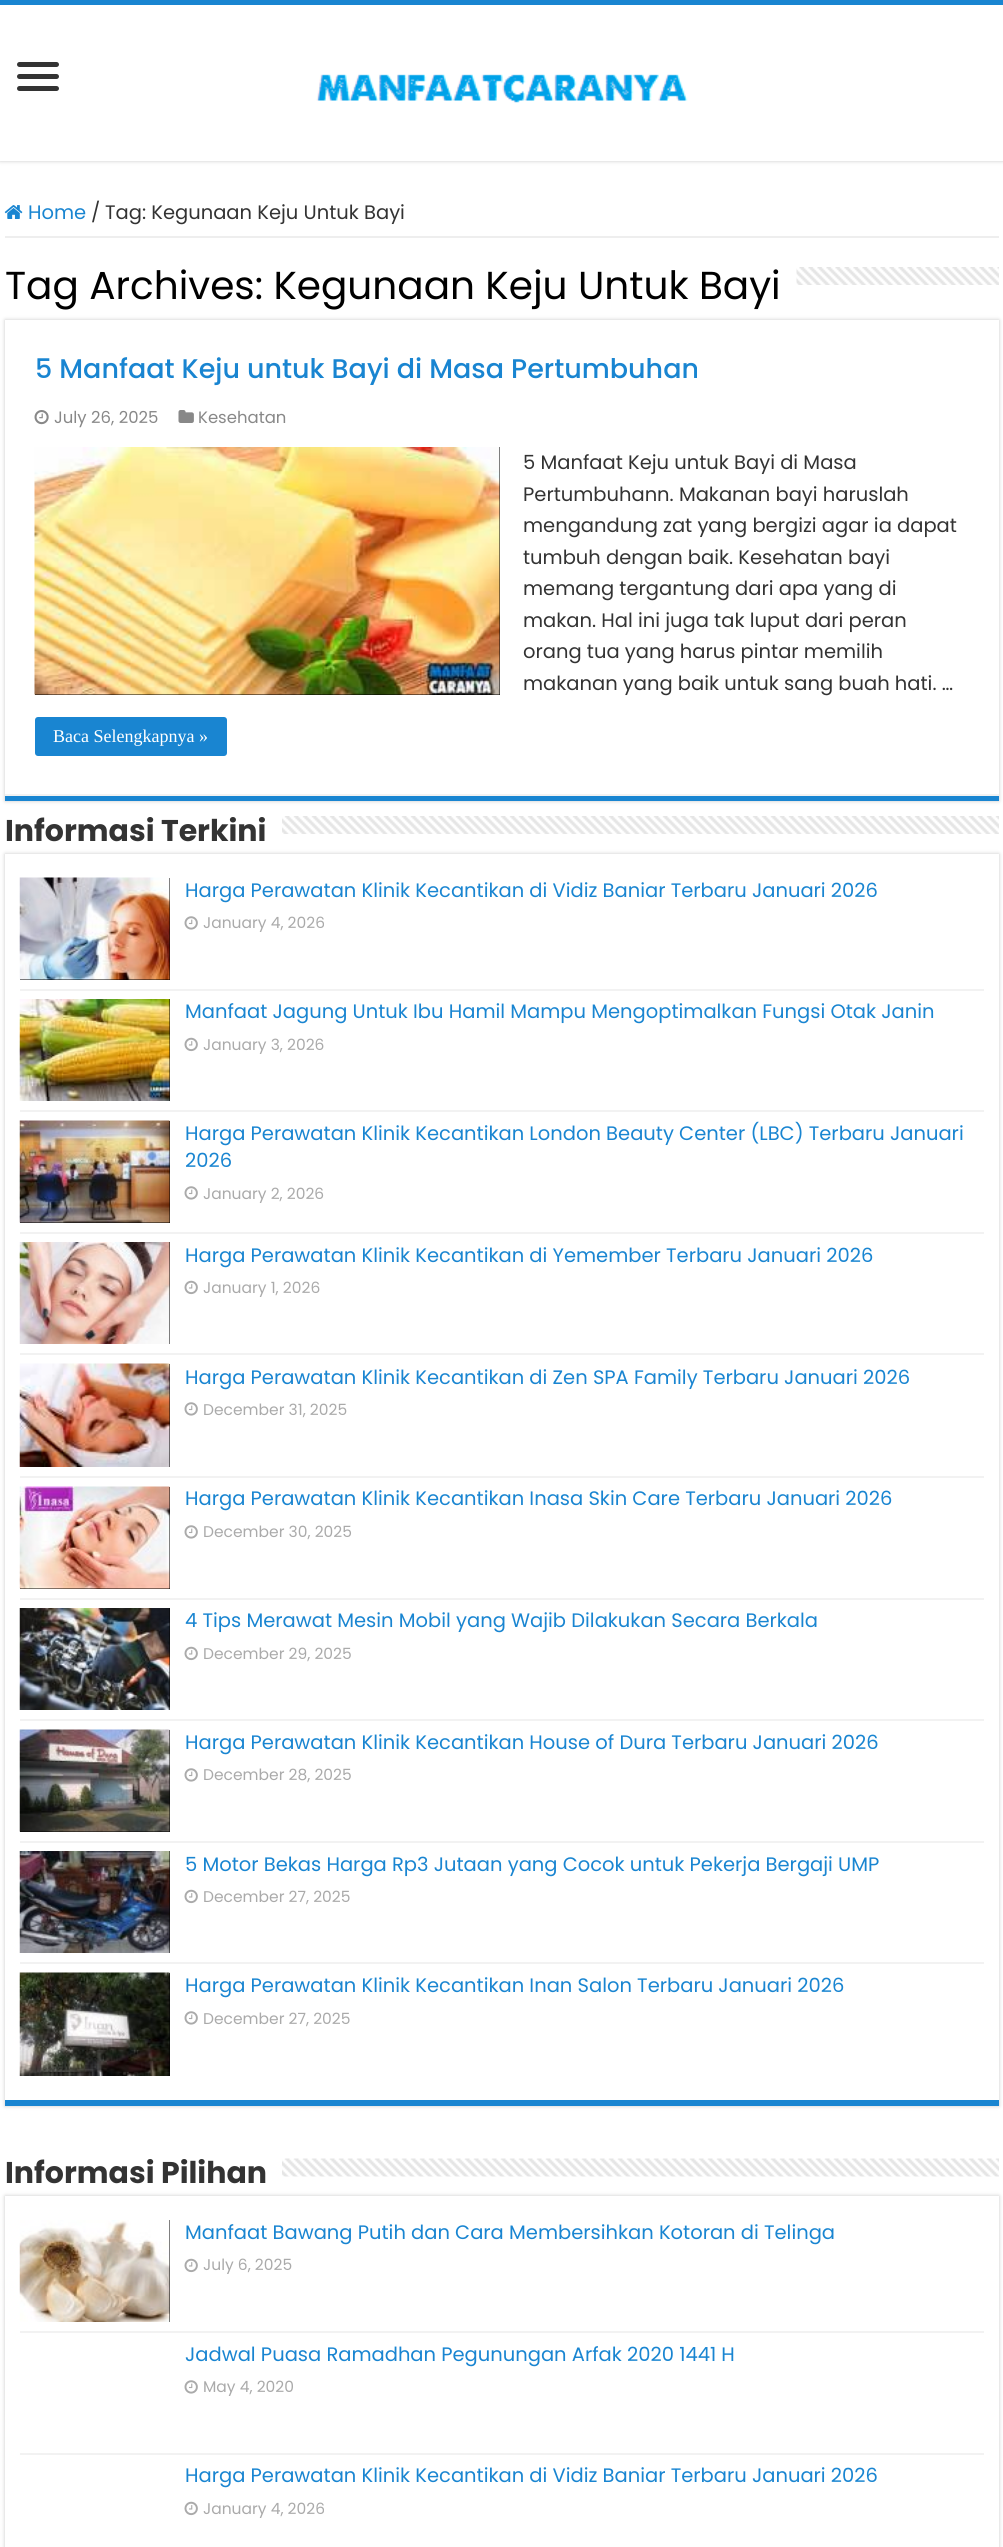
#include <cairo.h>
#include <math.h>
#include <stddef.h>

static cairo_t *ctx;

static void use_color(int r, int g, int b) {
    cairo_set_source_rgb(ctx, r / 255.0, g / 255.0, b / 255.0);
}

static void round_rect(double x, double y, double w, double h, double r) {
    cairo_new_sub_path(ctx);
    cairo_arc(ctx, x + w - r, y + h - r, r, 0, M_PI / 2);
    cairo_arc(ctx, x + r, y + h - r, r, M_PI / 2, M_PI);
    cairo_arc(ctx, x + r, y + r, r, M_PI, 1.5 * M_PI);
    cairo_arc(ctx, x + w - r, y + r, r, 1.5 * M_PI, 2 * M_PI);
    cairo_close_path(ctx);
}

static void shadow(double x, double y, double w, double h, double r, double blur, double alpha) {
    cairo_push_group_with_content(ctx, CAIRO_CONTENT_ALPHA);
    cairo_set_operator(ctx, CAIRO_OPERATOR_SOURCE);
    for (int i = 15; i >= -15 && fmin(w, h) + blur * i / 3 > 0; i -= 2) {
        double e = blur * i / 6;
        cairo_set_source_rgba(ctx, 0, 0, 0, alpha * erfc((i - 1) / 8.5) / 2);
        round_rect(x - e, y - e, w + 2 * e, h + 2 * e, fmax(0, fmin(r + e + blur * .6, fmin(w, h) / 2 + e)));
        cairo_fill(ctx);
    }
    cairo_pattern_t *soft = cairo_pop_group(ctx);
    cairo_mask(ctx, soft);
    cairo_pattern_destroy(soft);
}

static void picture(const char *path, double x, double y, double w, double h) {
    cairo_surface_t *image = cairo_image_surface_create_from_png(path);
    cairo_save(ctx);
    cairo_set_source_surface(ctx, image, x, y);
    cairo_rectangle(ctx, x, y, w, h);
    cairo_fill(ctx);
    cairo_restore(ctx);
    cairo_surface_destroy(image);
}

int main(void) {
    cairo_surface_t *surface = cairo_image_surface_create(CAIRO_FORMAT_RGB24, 1003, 2547);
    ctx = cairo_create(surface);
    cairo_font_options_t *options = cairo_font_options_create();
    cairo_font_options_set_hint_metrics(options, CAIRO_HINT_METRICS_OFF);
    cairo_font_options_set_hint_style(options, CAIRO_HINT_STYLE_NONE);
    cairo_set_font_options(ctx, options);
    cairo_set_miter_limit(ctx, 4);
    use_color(255, 255, 255);
    cairo_paint(ctx);
    use_color(202, 202, 202);
    shadow(0, 0, 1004, 161, 0, 2, 1);
    use_color(255, 255, 255);
    cairo_rectangle(ctx, 0, 5, 1003, 156);
    cairo_fill(ctx);
    use_color(25, 133, 209);
    cairo_rectangle(ctx, 0, 0, 1003, 5);
    cairo_fill(ctx);
    use_color(51, 51, 51);
    round_rect(17, 62, 42, 5, 2.5);
    cairo_fill(ctx);
    round_rect(17, 74, 42, 5, 2.5);
    cairo_fill(ctx);
    round_rect(17, 86, 42, 5, 2.5);
    cairo_fill(ctx);
    picture("img1.png", 316, 74, 372, 29);
    use_color(238, 238, 238);
    cairo_rectangle(ctx, 5, 236, 994, 2);
    cairo_fill(ctx);
    picture("img2.png", 4, 205, 19, 14);
    cairo_select_font_face(ctx, "Poppins", CAIRO_FONT_SLANT_NORMAL, CAIRO_FONT_WEIGHT_NORMAL);
    cairo_set_font_size(ctx, 19.5);
    use_color(25, 133, 209);
    cairo_move_to(ctx, 28, 219);
    cairo_show_text(ctx, "Home");
    use_color(51, 51, 51);
    cairo_move_to(ctx, 91, 219);
    cairo_show_text(ctx, "/");
    cairo_move_to(ctx, 105, 219);
    cairo_show_text(ctx, "Tag: Kegunaan Keju Untuk Bayi");
    cairo_set_font_size(ctx, 39);
    use_color(0, 0, 0);
    cairo_move_to(ctx, 5, 299);
    cairo_show_text(ctx, "Tag Archives: Kegunaan Keju Untuk Bayi");
    picture("img3.png", 796, 267, 203, 18);
    cairo_save(ctx);
    cairo_set_fill_rule(ctx, CAIRO_FILL_RULE_EVEN_ODD);
    cairo_new_path(ctx);
    cairo_move_to(ctx, 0, 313);
    cairo_line_to(ctx, 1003, 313);
    cairo_line_to(ctx, 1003, 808);
    cairo_line_to(ctx, 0, 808);
    cairo_close_path(ctx);
    cairo_move_to(ctx, 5, 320);
    cairo_line_to(ctx, 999, 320);
    cairo_line_to(ctx, 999, 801);
    cairo_line_to(ctx, 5, 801);
    cairo_close_path(ctx);
    cairo_clip(ctx);
    use_color(202, 202, 202);
    shadow(5, 320, 994, 481, 0, 2, 1);
    cairo_restore(ctx);
    use_color(25, 133, 209);
    cairo_rectangle(ctx, 5, 796, 994, 5);
    cairo_fill(ctx);
    use_color(242, 242, 242);
    cairo_rectangle(ctx, 5, 794, 994, 2);
    cairo_fill(ctx);
    cairo_select_font_face(ctx, "Poppins Medium", CAIRO_FONT_SLANT_NORMAL, CAIRO_FONT_WEIGHT_NORMAL);
    cairo_set_font_size(ctx, 27);
    use_color(25, 133, 209);
    cairo_move_to(ctx, 35, 378);
    cairo_show_text(ctx, "5 Manfaat Keju untuk Bayi di Masa Pertumbuhan");
    picture("img4.png", 34, 410, 15, 15);
    cairo_select_font_face(ctx, "Poppins", CAIRO_FONT_SLANT_NORMAL, CAIRO_FONT_WEIGHT_NORMAL);
    cairo_set_font_size(ctx, 16.5);
    use_color(136, 136, 136);
    cairo_move_to(ctx, 54, 423);
    cairo_show_text(ctx, "July 26, 2025");
    picture("img5.png", 178, 410, 16, 13);
    cairo_move_to(ctx, 198, 423);
    cairo_show_text(ctx, "Kesehatan");
    use_color(0, 0, 0);
    cairo_rectangle(ctx, 35, 447, 465, 248);
    cairo_fill(ctx);
    picture("img6.png", 34, 447, 466, 248);
    cairo_set_font_size(ctx, 19.5);
    use_color(51, 51, 51);
    cairo_move_to(ctx, 523, 469);
    cairo_show_text(ctx, "5 Manfaat Keju untuk Bayi di Masa");
    cairo_move_to(ctx, 523, 501);
    cairo_show_text(ctx, "Pertumbuhann. Makanan bayi haruslah");
    cairo_move_to(ctx, 523, 532);
    cairo_show_text(ctx, "mengandung zat yang bergizi agar ia dapat");
    cairo_move_to(ctx, 523, 564);
    cairo_show_text(ctx, "tumbuh dengan baik. Kesehatan bayi");
    cairo_move_to(ctx, 523, 595);
    cairo_show_text(ctx, "memang tergantung dari apa yang di");
    cairo_move_to(ctx, 523, 627);
    cairo_show_text(ctx, "makan. Hal ini juga tak luput dari peran");
    cairo_move_to(ctx, 523, 658);
    cairo_show_text(ctx, "orang tua yang harus pintar memilih");
    cairo_move_to(ctx, 523, 690);
    cairo_show_text(ctx, "makanan yang baik untuk sang buah hati. …");
    use_color(25, 133, 209);
    round_rect(35, 717, 192, 39, 3);
    cairo_fill(ctx);
    cairo_select_font_face(ctx, "Liberation Serif", CAIRO_FONT_SLANT_NORMAL, CAIRO_FONT_WEIGHT_NORMAL);
    cairo_set_font_size(ctx, 18);
    use_color(255, 255, 255);
    cairo_move_to(ctx, 53, 742);
    cairo_show_text(ctx, "Baca Selengkapnya »");
    cairo_select_font_face(ctx, "Poppins", CAIRO_FONT_SLANT_NORMAL, CAIRO_FONT_WEIGHT_BOLD);
    cairo_set_font_size(ctx, 30);
    use_color(51, 51, 51);
    cairo_move_to(ctx, 5, 841);
    cairo_show_text(ctx, "Informasi Terkini");
    picture("img7.png", 282, 816, 717, 18);
    cairo_save(ctx);
    cairo_set_fill_rule(ctx, CAIRO_FILL_RULE_EVEN_ODD);
    cairo_new_path(ctx);
    cairo_move_to(ctx, 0, 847);
    cairo_line_to(ctx, 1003, 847);
    cairo_line_to(ctx, 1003, 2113);
    cairo_line_to(ctx, 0, 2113);
    cairo_close_path(ctx);
    cairo_move_to(ctx, 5, 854);
    cairo_line_to(ctx, 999, 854);
    cairo_line_to(ctx, 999, 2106);
    cairo_line_to(ctx, 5, 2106);
    cairo_close_path(ctx);
    cairo_clip(ctx);
    use_color(202, 202, 202);
    shadow(5, 854, 994, 1252, 0, 2, 1);
    cairo_restore(ctx);
    use_color(25, 133, 209);
    cairo_rectangle(ctx, 5, 2100, 994, 6);
    cairo_fill(ctx);
    use_color(242, 242, 242);
    cairo_rectangle(ctx, 20, 989, 964, 2);
    cairo_fill(ctx);
    use_color(0, 0, 0);
    cairo_rectangle(ctx, 20, 878, 150, 102);
    cairo_fill(ctx);
    picture("img8.png", 19, 877, 151, 103);
    cairo_select_font_face(ctx, "Poppins", CAIRO_FONT_SLANT_NORMAL, CAIRO_FONT_WEIGHT_NORMAL);
    cairo_set_font_size(ctx, 19.5);
    use_color(25, 133, 209);
    cairo_move_to(ctx, 185, 897);
    cairo_show_text(ctx, "Harga Perawatan Klinik Kecantikan di Vidiz Baniar Terbaru Januari 2026");
    picture("img9.png", 184, 916, 14, 14);
    cairo_set_font_size(ctx, 15.5);
    use_color(170, 170, 170);
    cairo_move_to(ctx, 203, 928);
    cairo_show_text(ctx, "January 4, 2026");
    use_color(242, 242, 242);
    cairo_rectangle(ctx, 20, 1110, 964, 2);
    cairo_fill(ctx);
    use_color(0, 0, 0);
    cairo_rectangle(ctx, 169, 999, 1, 102);
    cairo_fill(ctx);
    picture("img10.png", 19, 999, 151, 102);
    cairo_set_font_size(ctx, 19.5);
    use_color(25, 133, 209);
    cairo_move_to(ctx, 185, 1018);
    cairo_show_text(ctx, "Manfaat Jagung Untuk Ibu Hamil Mampu Mengoptimalkan Fungsi Otak Janin");
    picture("img11.png", 184, 1037, 14, 15);
    cairo_set_font_size(ctx, 15.5);
    use_color(170, 170, 170);
    cairo_move_to(ctx, 203, 1050);
    cairo_show_text(ctx, "January 3, 2026");
    use_color(242, 242, 242);
    cairo_rectangle(ctx, 20, 1232, 964, 2);
    cairo_fill(ctx);
    use_color(0, 0, 0);
    cairo_rectangle(ctx, 20, 1121, 150, 102);
    cairo_fill(ctx);
    picture("img12.png", 19, 1120, 151, 103);
    cairo_set_font_size(ctx, 19.5);
    use_color(25, 133, 209);
    cairo_move_to(ctx, 185, 1140);
    cairo_show_text(ctx, "Harga Perawatan Klinik Kecantikan London Beauty Center (LBC) Terbaru Januari");
    cairo_move_to(ctx, 185, 1167);
    cairo_show_text(ctx, "2026");
    picture("img9.png", 184, 1186, 14, 14);
    cairo_set_font_size(ctx, 15.5);
    use_color(170, 170, 170);
    cairo_move_to(ctx, 203, 1199);
    cairo_show_text(ctx, "January 2, 2026");
    use_color(242, 242, 242);
    cairo_rectangle(ctx, 20, 1353, 964, 2);
    cairo_fill(ctx);
    use_color(0, 0, 0);
    cairo_rectangle(ctx, 169, 1242, 1, 102);
    cairo_fill(ctx);
    picture("img13.png", 19, 1242, 151, 102);
    cairo_set_font_size(ctx, 19.5);
    use_color(25, 133, 209);
    cairo_move_to(ctx, 185, 1262);
    cairo_show_text(ctx, "Harga Perawatan Klinik Kecantikan di Yemember Terbaru Januari 2026");
    picture("img11.png", 184, 1280, 14, 15);
    cairo_set_font_size(ctx, 15.5);
    use_color(170, 170, 170);
    cairo_move_to(ctx, 203, 1293);
    cairo_show_text(ctx, "January 1, 2026");
    use_color(242, 242, 242);
    cairo_rectangle(ctx, 20, 1476, 964, 2);
    cairo_fill(ctx);
    use_color(0, 0, 0);
    cairo_rectangle(ctx, 169, 1364, 1, 103);
    cairo_fill(ctx);
    picture("img14.png", 19, 1363, 151, 104);
    cairo_set_font_size(ctx, 19.5);
    use_color(25, 133, 209);
    cairo_move_to(ctx, 185, 1384);
    cairo_show_text(ctx, "Harga Perawatan Klinik Kecantikan di Zen SPA Family Terbaru Januari 2026");
    picture("img9.png", 184, 1402, 14, 14);
    cairo_set_font_size(ctx, 15.5);
    use_color(170, 170, 170);
    cairo_move_to(ctx, 203, 1415);
    cairo_show_text(ctx, "December 31, 2025");
    use_color(242, 242, 242);
    cairo_rectangle(ctx, 20, 1598, 964, 2);
    cairo_fill(ctx);
    use_color(0, 0, 0);
    cairo_rectangle(ctx, 20, 1487, 150, 102);
    cairo_fill(ctx);
    picture("img15.png", 19, 1486, 151, 103);
    cairo_set_font_size(ctx, 19.5);
    use_color(25, 133, 209);
    cairo_move_to(ctx, 185, 1505);
    cairo_show_text(ctx, "Harga Perawatan Klinik Kecantikan Inasa Skin Care Terbaru Januari 2026");
    picture("img9.png", 184, 1525, 14, 14);
    cairo_set_font_size(ctx, 15.5);
    use_color(170, 170, 170);
    cairo_move_to(ctx, 203, 1537);
    cairo_show_text(ctx, "December 30, 2025");
    use_color(242, 242, 242);
    cairo_rectangle(ctx, 20, 1719, 964, 2);
    cairo_fill(ctx);
    use_color(0, 0, 0);
    cairo_rectangle(ctx, 169, 1608, 1, 102);
    cairo_fill(ctx);
    picture("img16.png", 19, 1608, 151, 102);
    cairo_set_font_size(ctx, 19.5);
    use_color(25, 133, 209);
    cairo_move_to(ctx, 185, 1627);
    cairo_show_text(ctx, "4 Tips Merawat Mesin Mobil yang Wajib Dilakukan Secara Berkala");
    picture("img11.png", 184, 1646, 14, 15);
    cairo_set_font_size(ctx, 15.5);
    use_color(170, 170, 170);
    cairo_move_to(ctx, 203, 1659);
    cairo_show_text(ctx, "December 29, 2025");
    use_color(242, 242, 242);
    cairo_rectangle(ctx, 20, 1841, 964, 2);
    cairo_fill(ctx);
    use_color(0, 0, 0);
    cairo_rectangle(ctx, 20, 1730, 150, 102);
    cairo_fill(ctx);
    picture("img17.png", 19, 1729, 151, 103);
    cairo_set_font_size(ctx, 19.5);
    use_color(25, 133, 209);
    cairo_move_to(ctx, 185, 1749);
    cairo_show_text(ctx, "Harga Perawatan Klinik Kecantikan House of Dura Terbaru Januari 2026");
    picture("img9.png", 184, 1768, 14, 14);
    cairo_set_font_size(ctx, 15.5);
    use_color(170, 170, 170);
    cairo_move_to(ctx, 203, 1780);
    cairo_show_text(ctx, "December 28, 2025");
    use_color(242, 242, 242);
    cairo_rectangle(ctx, 20, 1962, 964, 2);
    cairo_fill(ctx);
    use_color(0, 0, 0);
    cairo_rectangle(ctx, 169, 1851, 1, 102);
    cairo_fill(ctx);
    picture("img18.png", 19, 1851, 151, 102);
    cairo_set_font_size(ctx, 19.5);
    use_color(25, 133, 209);
    cairo_move_to(ctx, 185, 1871);
    cairo_show_text(ctx, "5 Motor Bekas Harga Rp3 Jutaan yang Cocok untuk Pekerja Bergaji UMP");
    picture("img11.png", 184, 1889, 14, 15);
    cairo_set_font_size(ctx, 15.5);
    use_color(170, 170, 170);
    cairo_move_to(ctx, 203, 1902);
    cairo_show_text(ctx, "December 27, 2025");
    use_color(0, 0, 0);
    cairo_rectangle(ctx, 169, 1973, 1, 103);
    cairo_fill(ctx);
    picture("img19.png", 19, 1972, 151, 104);
    cairo_set_font_size(ctx, 19.5);
    use_color(25, 133, 209);
    cairo_move_to(ctx, 185, 1992);
    cairo_show_text(ctx, "Harga Perawatan Klinik Kecantikan Inan Salon Terbaru Januari 2026");
    picture("img9.png", 184, 2011, 14, 14);
    cairo_set_font_size(ctx, 15.5);
    use_color(170, 170, 170);
    cairo_move_to(ctx, 203, 2024);
    cairo_show_text(ctx, "December 27, 2025");
    cairo_select_font_face(ctx, "Poppins", CAIRO_FONT_SLANT_NORMAL, CAIRO_FONT_WEIGHT_BOLD);
    cairo_set_font_size(ctx, 30);
    use_color(51, 51, 51);
    cairo_move_to(ctx, 5, 2183);
    cairo_show_text(ctx, "Informasi Pilihan");
    picture("img20.png", 282, 2158, 717, 19);
    cairo_save(ctx);
    cairo_set_fill_rule(ctx, CAIRO_FILL_RULE_EVEN_ODD);
    cairo_new_path(ctx);
    cairo_move_to(ctx, 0, 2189);
    cairo_line_to(ctx, 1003, 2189);
    cairo_line_to(ctx, 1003, 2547);
    cairo_line_to(ctx, 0, 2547);
    cairo_close_path(ctx);
    cairo_move_to(ctx, 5, 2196);
    cairo_line_to(ctx, 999, 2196);
    cairo_line_to(ctx, 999, 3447);
    cairo_line_to(ctx, 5, 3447);
    cairo_close_path(ctx);
    cairo_clip(ctx);
    use_color(202, 202, 202);
    shadow(5, 2196, 994, 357, 0, 2, 1);
    cairo_restore(ctx);
    use_color(242, 242, 242);
    cairo_rectangle(ctx, 20, 2331, 964, 2);
    cairo_fill(ctx);
    use_color(0, 0, 0);
    cairo_rectangle(ctx, 169, 2220, 1, 102);
    cairo_fill(ctx);
    picture("img21.png", 19, 2220, 151, 102);
    cairo_select_font_face(ctx, "Poppins", CAIRO_FONT_SLANT_NORMAL, CAIRO_FONT_WEIGHT_NORMAL);
    cairo_set_font_size(ctx, 19.5);
    use_color(25, 133, 209);
    cairo_move_to(ctx, 185, 2239);
    cairo_show_text(ctx, "Manfaat Bawang Putih dan Cara Membersihkan Kotoran di Telinga");
    picture("img11.png", 184, 2258, 14, 15);
    cairo_set_font_size(ctx, 15.5);
    use_color(170, 170, 170);
    cairo_move_to(ctx, 203, 2270);
    cairo_show_text(ctx, "July 6, 2025");
    use_color(242, 242, 242);
    cairo_rectangle(ctx, 20, 2453, 964, 2);
    cairo_fill(ctx);
    cairo_set_font_size(ctx, 19.5);
    use_color(25, 133, 209);
    cairo_move_to(ctx, 185, 2361);
    cairo_show_text(ctx, "Jadwal Puasa Ramadhan Pegunungan Arfak 2020 1441 H");
    picture("img9.png", 184, 2380, 14, 14);
    cairo_set_font_size(ctx, 15.5);
    use_color(170, 170, 170);
    cairo_move_to(ctx, 203, 2392);
    cairo_show_text(ctx, "May 4, 2020");
    cairo_set_font_size(ctx, 19.5);
    use_color(25, 133, 209);
    cairo_move_to(ctx, 185, 2482);
    cairo_show_text(ctx, "Harga Perawatan Klinik Kecantikan di Vidiz Baniar Terbaru Januari 2026");
    picture("img11.png", 184, 2501, 14, 15);
    cairo_set_font_size(ctx, 15.5);
    use_color(170, 170, 170);
    cairo_move_to(ctx, 203, 2514);
    cairo_show_text(ctx, "January 4, 2026");
    cairo_surface_write_to_png(surface, "result.png");
    cairo_font_options_destroy(options);
    cairo_destroy(ctx);
    cairo_surface_destroy(surface);
    return 0;
}
